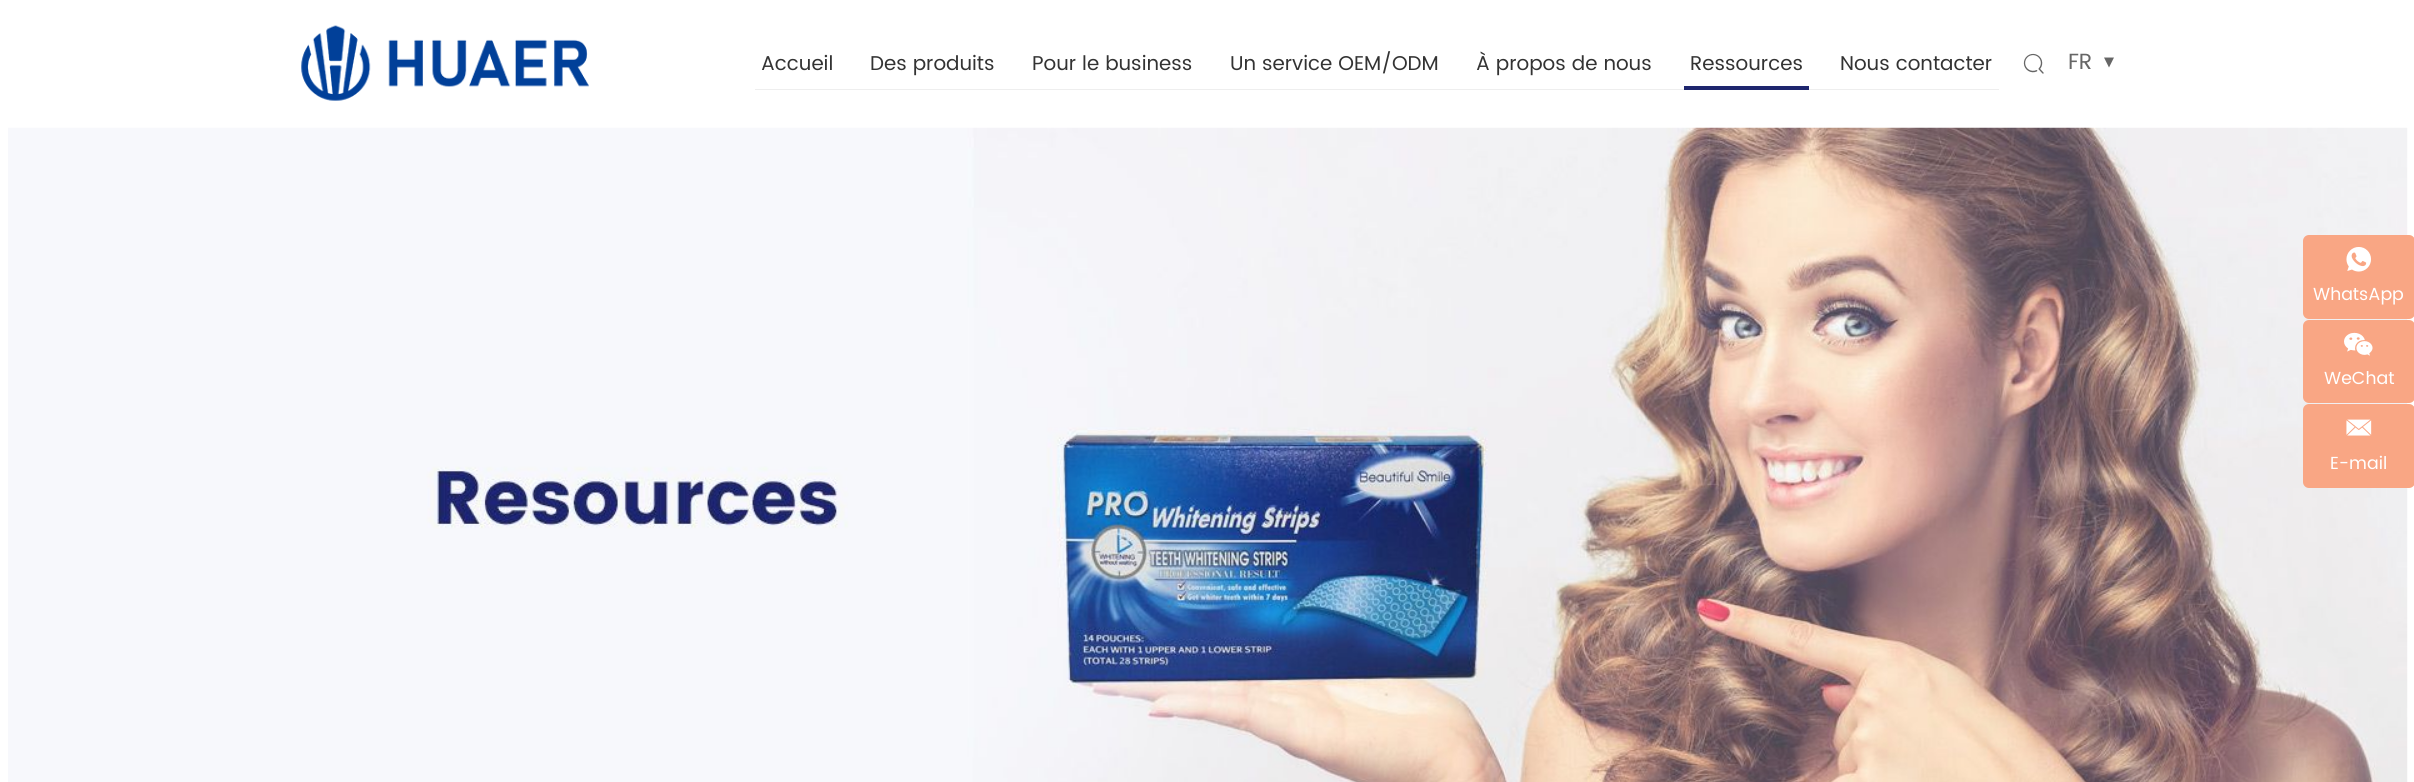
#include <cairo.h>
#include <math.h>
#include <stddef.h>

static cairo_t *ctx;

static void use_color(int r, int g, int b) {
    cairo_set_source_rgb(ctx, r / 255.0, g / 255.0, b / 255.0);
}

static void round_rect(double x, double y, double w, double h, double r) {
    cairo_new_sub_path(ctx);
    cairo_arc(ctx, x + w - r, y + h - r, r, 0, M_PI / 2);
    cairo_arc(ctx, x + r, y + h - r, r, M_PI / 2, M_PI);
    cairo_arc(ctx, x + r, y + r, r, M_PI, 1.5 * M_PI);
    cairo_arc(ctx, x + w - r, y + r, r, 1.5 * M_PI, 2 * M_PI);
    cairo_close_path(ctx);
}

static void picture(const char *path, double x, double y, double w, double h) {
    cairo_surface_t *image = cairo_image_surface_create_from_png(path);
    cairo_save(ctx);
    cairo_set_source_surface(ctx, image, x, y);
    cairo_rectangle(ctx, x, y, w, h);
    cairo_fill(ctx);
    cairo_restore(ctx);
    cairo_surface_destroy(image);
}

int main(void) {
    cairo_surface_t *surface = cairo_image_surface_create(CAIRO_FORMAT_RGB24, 2414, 782);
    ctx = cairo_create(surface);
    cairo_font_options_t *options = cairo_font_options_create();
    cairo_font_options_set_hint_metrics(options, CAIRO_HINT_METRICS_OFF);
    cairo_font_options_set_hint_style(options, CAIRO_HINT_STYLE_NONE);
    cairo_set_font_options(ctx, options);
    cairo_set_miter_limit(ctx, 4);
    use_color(255, 255, 255);
    cairo_paint(ctx);
    picture("img1.png", 301, 25, 288, 76);
    cairo_select_font_face(ctx, "Poppins", CAIRO_FONT_SLANT_NORMAL, CAIRO_FONT_WEIGHT_NORMAL);
    cairo_set_font_size(ctx, 20);
    use_color(51, 51, 51);
    cairo_move_to(ctx, 761, 70);
    cairo_show_text(ctx, "Accueil");
    cairo_move_to(ctx, 870, 70);
    cairo_show_text(ctx, "Des produits");
    cairo_move_to(ctx, 1032, 70);
    cairo_show_text(ctx, "Pour le business");
    cairo_move_to(ctx, 1230, 70);
    cairo_show_text(ctx, "Un service OEM/ODM");
    cairo_move_to(ctx, 1476, 70);
    cairo_show_text(ctx, "À propos de nous");
    cairo_move_to(ctx, 1690, 70);
    cairo_show_text(ctx, "Ressources");
    use_color(238, 238, 238);
    cairo_rectangle(ctx, 755, 89, 1244, 1);
    cairo_fill(ctx);
    use_color(30, 38, 110);
    cairo_rectangle(ctx, 1684, 86, 125, 4);
    cairo_fill(ctx);
    use_color(51, 51, 51);
    cairo_move_to(ctx, 1840, 70);
    cairo_show_text(ctx, "Nous contacter");
    picture("img2.png", 2023, 53, 21, 21);
    cairo_set_font_size(ctx, 22);
    use_color(102, 102, 102);
    cairo_move_to(ctx, 2068, 69);
    cairo_show_text(ctx, "FR");
    cairo_new_path(ctx);
    cairo_move_to(ctx, 2104, 57.5);
    cairo_line_to(ctx, 2114, 57.5);
    cairo_line_to(ctx, 2109, 67.5);
    cairo_close_path(ctx);
    cairo_fill(ctx);
    picture("img3.png", 8, 127, 2400, 655);
    use_color(249, 166, 132);
    round_rect(2303, 235, 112, 84, 6);
    cairo_fill(ctx);
    picture("img4.png", 2346, 247, 25, 25);
    cairo_set_font_size(ctx, 17.5);
    use_color(255, 255, 255);
    cairo_move_to(ctx, 2313, 300);
    cairo_show_text(ctx, "WhatsApp");
    use_color(249, 166, 132);
    round_rect(2303, 320, 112, 83, 6);
    cairo_fill(ctx);
    picture("img5.png", 2344, 332, 29, 24);
    use_color(255, 255, 255);
    cairo_move_to(ctx, 2324, 384);
    cairo_show_text(ctx, "WeChat");
    use_color(249, 166, 132);
    round_rect(2303, 404, 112, 84, 6);
    cairo_fill(ctx);
    picture("img6.png", 2346, 419, 26, 17);
    use_color(255, 255, 255);
    cairo_move_to(ctx, 2330, 469);
    cairo_show_text(ctx, "E-mail");
    cairo_surface_write_to_png(surface, "result.png");
    cairo_font_options_destroy(options);
    cairo_destroy(ctx);
    cairo_surface_destroy(surface);
    return 0;
}
